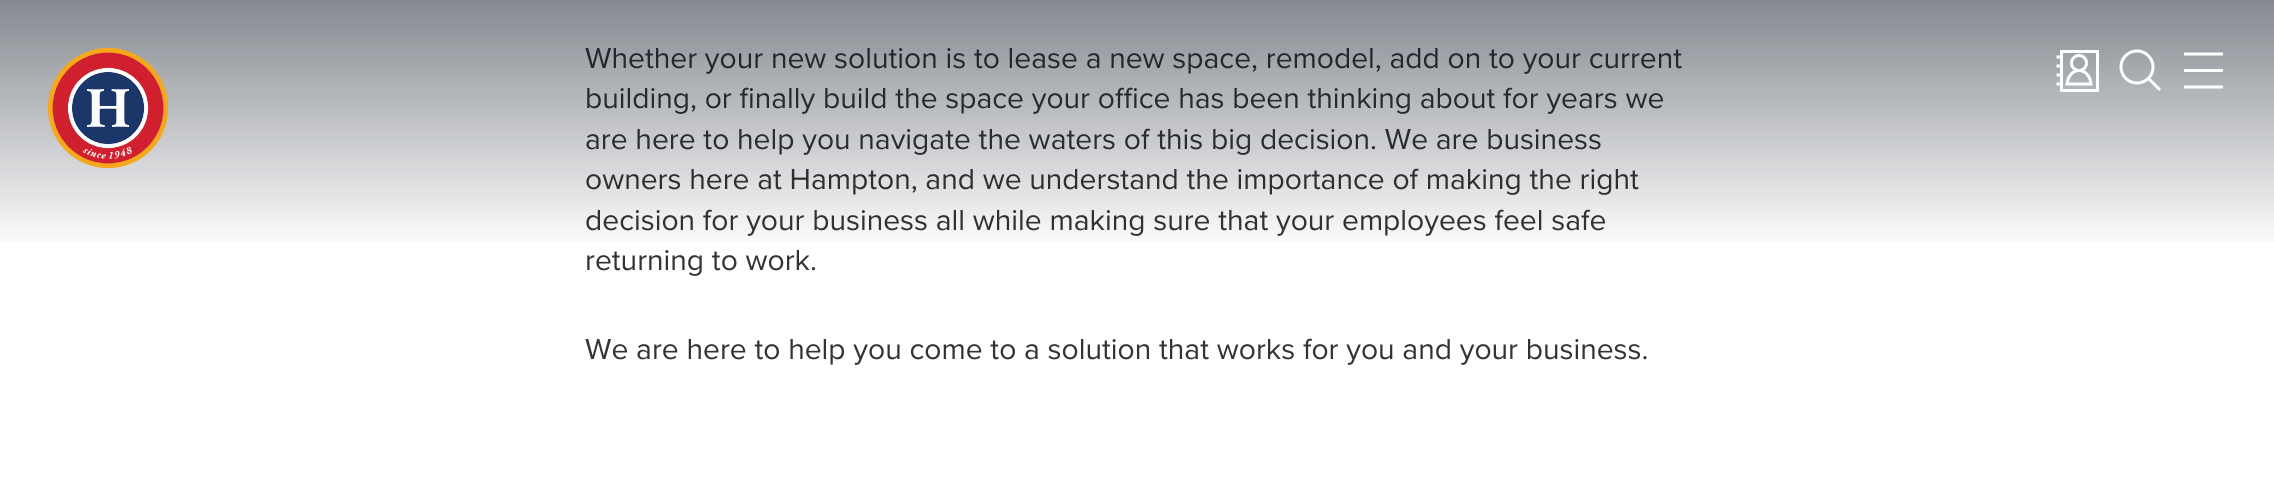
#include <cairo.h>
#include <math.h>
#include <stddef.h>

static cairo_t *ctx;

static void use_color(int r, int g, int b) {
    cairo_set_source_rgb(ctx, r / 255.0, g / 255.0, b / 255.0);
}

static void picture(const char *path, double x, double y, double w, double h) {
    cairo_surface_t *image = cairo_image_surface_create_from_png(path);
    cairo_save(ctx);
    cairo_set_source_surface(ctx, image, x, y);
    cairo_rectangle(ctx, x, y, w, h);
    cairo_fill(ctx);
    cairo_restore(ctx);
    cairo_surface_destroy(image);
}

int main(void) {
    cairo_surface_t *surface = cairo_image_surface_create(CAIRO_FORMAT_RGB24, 2274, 504);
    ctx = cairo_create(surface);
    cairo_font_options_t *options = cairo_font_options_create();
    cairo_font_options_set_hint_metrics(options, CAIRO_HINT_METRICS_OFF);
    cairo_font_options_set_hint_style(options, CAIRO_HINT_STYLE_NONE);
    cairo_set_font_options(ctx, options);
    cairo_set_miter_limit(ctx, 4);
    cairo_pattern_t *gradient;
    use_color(255, 255, 255);
    cairo_paint(ctx);
    cairo_select_font_face(ctx, "Proxima Nova", CAIRO_FONT_SLANT_NORMAL, CAIRO_FONT_WEIGHT_NORMAL);
    cairo_set_font_size(ctx, 30);
    use_color(51, 51, 51);
    cairo_move_to(ctx, 585, 68);
    cairo_show_text(ctx, "Whether your new solution is to lease a new space, remodel, add on to your current");
    cairo_move_to(ctx, 585, 108);
    cairo_show_text(ctx, "building, or finally build the space your office has been thinking about for years we");
    cairo_move_to(ctx, 585, 149);
    cairo_show_text(ctx, "are here to help you navigate the waters of this big decision. We are business");
    cairo_move_to(ctx, 585, 189);
    cairo_show_text(ctx, "owners here at Hampton, and we understand the importance of making the right");
    cairo_move_to(ctx, 585, 230);
    cairo_show_text(ctx, "decision for your business all while making sure that your employees feel safe");
    gradient = cairo_pattern_create_linear(1137, 0, 1137, 252);
    cairo_pattern_add_color_stop_rgba(gradient, 0, 0.043, 0.082, 0.133, 0.5);
    cairo_pattern_add_color_stop_rgba(gradient, 1, 0.043, 0.082, 0.133, 0);
    cairo_set_source(ctx, gradient);
    cairo_pattern_destroy(gradient);
    cairo_rectangle(ctx, 0, 0, 2274, 241);
    cairo_fill(ctx);
    picture("img1.png", 48, 48, 120, 120);
    picture("img2.png", 2056, 50, 43, 42);
    cairo_arc(ctx, 2137, 67, 16, 0, 2 * M_PI);
    use_color(255, 255, 255);
    cairo_set_line_width(ctx, 3);
    cairo_stroke(ctx);
    cairo_new_path(ctx);
    cairo_move_to(ctx, 2148, 78);
    cairo_line_to(ctx, 2160, 90);
    cairo_stroke(ctx);
    cairo_new_path(ctx);
    cairo_move_to(ctx, 2184, 54);
    cairo_line_to(ctx, 2223, 54);
    cairo_stroke(ctx);
    cairo_rectangle(ctx, 2184, 69, 39, 3);
    cairo_fill(ctx);
    cairo_new_path(ctx);
    cairo_move_to(ctx, 2184, 87);
    cairo_line_to(ctx, 2223, 87);
    cairo_stroke(ctx);
    use_color(51, 51, 51);
    cairo_move_to(ctx, 585, 270);
    cairo_show_text(ctx, "returning to work.");
    cairo_move_to(ctx, 585, 359);
    cairo_show_text(ctx, "We are here to help you come to a solution that works for you and your business.");
    cairo_surface_write_to_png(surface, "result.png");
    cairo_font_options_destroy(options);
    cairo_destroy(ctx);
    cairo_surface_destroy(surface);
    return 0;
}
